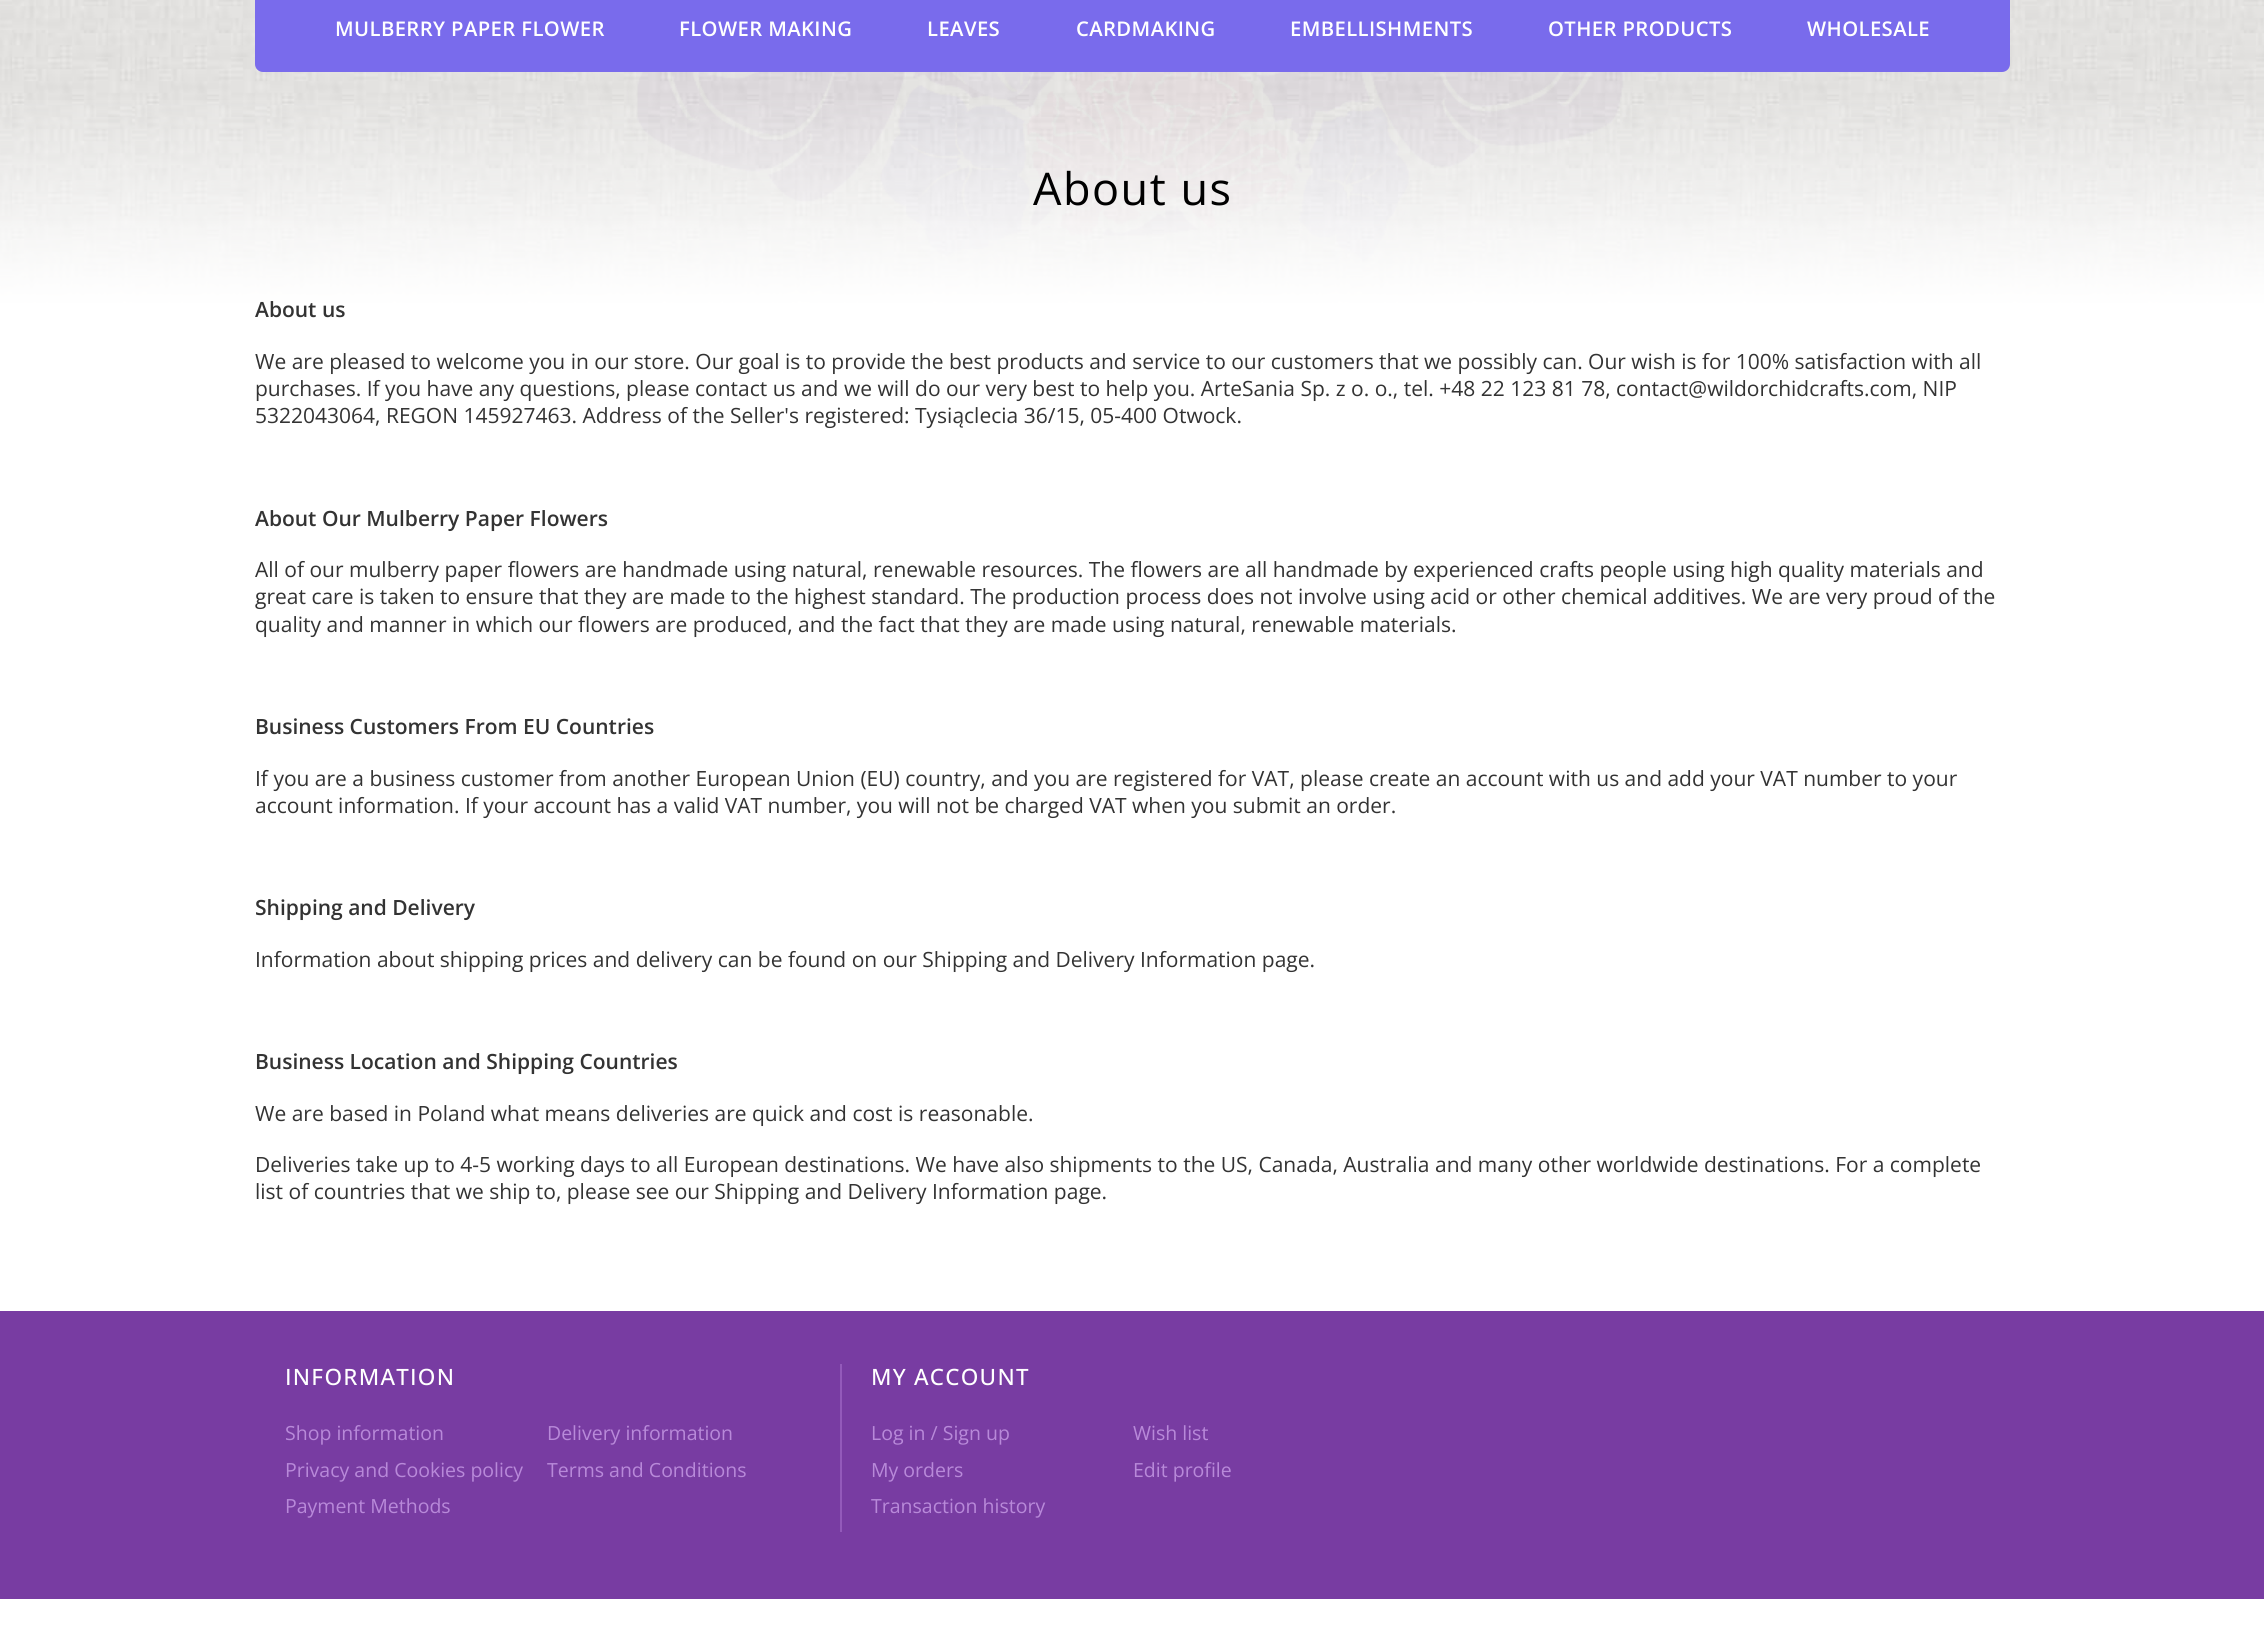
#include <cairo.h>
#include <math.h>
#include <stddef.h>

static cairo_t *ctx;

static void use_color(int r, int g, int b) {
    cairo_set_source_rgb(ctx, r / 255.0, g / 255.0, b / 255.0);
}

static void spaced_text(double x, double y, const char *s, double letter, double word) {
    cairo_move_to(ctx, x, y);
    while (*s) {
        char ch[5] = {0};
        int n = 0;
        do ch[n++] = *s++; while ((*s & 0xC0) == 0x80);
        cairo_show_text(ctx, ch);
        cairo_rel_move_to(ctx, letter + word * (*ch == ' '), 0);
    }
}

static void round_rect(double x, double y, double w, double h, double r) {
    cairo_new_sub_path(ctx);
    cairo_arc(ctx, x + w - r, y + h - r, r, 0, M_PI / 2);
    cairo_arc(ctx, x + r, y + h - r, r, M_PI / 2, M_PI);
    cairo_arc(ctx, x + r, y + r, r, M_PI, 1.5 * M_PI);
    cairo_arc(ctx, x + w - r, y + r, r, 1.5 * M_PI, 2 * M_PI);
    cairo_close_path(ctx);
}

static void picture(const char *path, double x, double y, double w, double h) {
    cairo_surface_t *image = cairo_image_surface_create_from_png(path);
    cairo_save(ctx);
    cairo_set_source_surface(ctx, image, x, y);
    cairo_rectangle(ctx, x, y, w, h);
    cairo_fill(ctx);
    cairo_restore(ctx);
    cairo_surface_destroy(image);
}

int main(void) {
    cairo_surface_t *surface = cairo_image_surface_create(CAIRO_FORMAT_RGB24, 2264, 1627);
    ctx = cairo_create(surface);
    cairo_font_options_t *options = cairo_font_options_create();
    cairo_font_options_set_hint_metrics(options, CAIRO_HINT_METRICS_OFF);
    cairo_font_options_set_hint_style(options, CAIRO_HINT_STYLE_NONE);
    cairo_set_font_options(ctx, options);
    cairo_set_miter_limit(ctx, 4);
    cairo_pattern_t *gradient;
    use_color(255, 255, 255);
    cairo_paint(ctx);
    picture("img1.png", 0, 0, 2264, 306);
    use_color(121, 107, 236);
    round_rect(255, -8, 1755, 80, 8);
    cairo_fill(ctx);
    cairo_select_font_face(ctx, "Open Sans SemiBold", CAIRO_FONT_SLANT_NORMAL, CAIRO_FONT_WEIGHT_NORMAL);
    cairo_set_font_size(ctx, 20.25);
    use_color(255, 255, 255);
    spaced_text(335, 36, "MULBERRY PAPER FLOWER", 0.4, 0);
    spaced_text(679, 36, "FLOWER MAKING", 0.4, 0);
    spaced_text(927, 36, "LEAVES", 0.4, 0);
    spaced_text(1076, 36, "CARDMAKING", 0.4, 0);
    spaced_text(1290, 36, "EMBELLISHMENTS", 0.4, 0);
    spaced_text(1548, 36, "OTHER PRODUCTS", 0.4, 0);
    spaced_text(1807, 36, "WHOLESALE", 0.4, 0);
    picture("img2.png", 0, 221, 2264, 85);
    gradient = cairo_pattern_create_linear(1133, 87, 1133, 1311);
    cairo_pattern_add_color_stop_rgba(gradient, 0, 1, 1, 1, 0);
    cairo_pattern_add_color_stop_rgba(gradient, 0.18, 1, 1, 1, 1);
    cairo_set_source(ctx, gradient);
    cairo_pattern_destroy(gradient);
    cairo_rectangle(ctx, 0, 100, 2264, 206);
    cairo_fill(ctx);
    cairo_select_font_face(ctx, "Open Sans", CAIRO_FONT_SLANT_NORMAL, CAIRO_FONT_WEIGHT_NORMAL);
    cairo_set_font_size(ctx, 45);
    use_color(0, 0, 0);
    spaced_text(1033, 205, "About us", 1.5, 0);
    cairo_select_font_face(ctx, "Open Sans SemiBold", CAIRO_FONT_SLANT_NORMAL, CAIRO_FONT_WEIGHT_NORMAL);
    cairo_set_font_size(ctx, 21);
    use_color(51, 51, 51);
    cairo_move_to(ctx, 255, 317);
    cairo_show_text(ctx, "About us");
    cairo_select_font_face(ctx, "Open Sans", CAIRO_FONT_SLANT_NORMAL, CAIRO_FONT_WEIGHT_NORMAL);
    cairo_move_to(ctx, 255, 369);
    cairo_show_text(ctx, "We are pleased to welcome you in our store. Our goal is to provide the best products and service to our customers that we possibly can. Our wish is for 100% satisfaction with all");
    cairo_move_to(ctx, 255, 396);
    cairo_show_text(ctx, "purchases. If you have any questions, please contact us and we will do our very best to help you. ArteSania Sp. z o. o., tel. +48 22 123 81 78, contact@wildorchidcrafts.com, NIP");
    cairo_move_to(ctx, 255, 423);
    cairo_show_text(ctx, "5322043064, REGON 145927463. Address of the Seller's registered: Tysiąclecia 36/15, 05-400 Otwock.");
    cairo_select_font_face(ctx, "Open Sans SemiBold", CAIRO_FONT_SLANT_NORMAL, CAIRO_FONT_WEIGHT_NORMAL);
    cairo_move_to(ctx, 255, 526);
    cairo_show_text(ctx, "About Our Mulberry Paper Flowers");
    cairo_select_font_face(ctx, "Open Sans", CAIRO_FONT_SLANT_NORMAL, CAIRO_FONT_WEIGHT_NORMAL);
    cairo_move_to(ctx, 255, 577);
    cairo_show_text(ctx, "All of our mulberry paper flowers are handmade using natural, renewable resources. The flowers are all handmade by experienced crafts people using high quality materials and");
    cairo_move_to(ctx, 255, 604);
    cairo_show_text(ctx, "great care is taken to ensure that they are made to the highest standard. The production process does not involve using acid or other chemical additives. We are very proud of the");
    cairo_move_to(ctx, 255, 632);
    cairo_show_text(ctx, "quality and manner in which our flowers are produced, and the fact that they are made using natural, renewable materials.");
    cairo_select_font_face(ctx, "Open Sans SemiBold", CAIRO_FONT_SLANT_NORMAL, CAIRO_FONT_WEIGHT_NORMAL);
    cairo_move_to(ctx, 255, 734);
    cairo_show_text(ctx, "Business Customers From EU Countries");
    cairo_select_font_face(ctx, "Open Sans", CAIRO_FONT_SLANT_NORMAL, CAIRO_FONT_WEIGHT_NORMAL);
    cairo_move_to(ctx, 255, 786);
    cairo_show_text(ctx, "If you are a business customer from another European Union (EU) country, and you are registered for VAT, please create an account with us and add your VAT number to your");
    cairo_move_to(ctx, 255, 813);
    cairo_show_text(ctx, "account information. If your account has a valid VAT number, you will not be charged VAT when you submit an order.");
    cairo_select_font_face(ctx, "Open Sans SemiBold", CAIRO_FONT_SLANT_NORMAL, CAIRO_FONT_WEIGHT_NORMAL);
    cairo_move_to(ctx, 255, 915);
    cairo_show_text(ctx, "Shipping and Delivery");
    cairo_select_font_face(ctx, "Open Sans", CAIRO_FONT_SLANT_NORMAL, CAIRO_FONT_WEIGHT_NORMAL);
    cairo_move_to(ctx, 255, 967);
    cairo_show_text(ctx, "Information about shipping prices and delivery can be found on our Shipping and Delivery Information page.");
    cairo_select_font_face(ctx, "Open Sans SemiBold", CAIRO_FONT_SLANT_NORMAL, CAIRO_FONT_WEIGHT_NORMAL);
    cairo_move_to(ctx, 255, 1069);
    cairo_show_text(ctx, "Business Location and Shipping Countries");
    cairo_select_font_face(ctx, "Open Sans", CAIRO_FONT_SLANT_NORMAL, CAIRO_FONT_WEIGHT_NORMAL);
    cairo_move_to(ctx, 255, 1121);
    cairo_show_text(ctx, "We are based in Poland what means deliveries are quick and cost is reasonable.");
    cairo_move_to(ctx, 255, 1172);
    cairo_show_text(ctx, "Deliveries take up to 4-5 working days to all European destinations. We have also shipments to the US, Canada, Australia and many other worldwide destinations. For a complete");
    cairo_move_to(ctx, 255, 1199);
    cairo_show_text(ctx, "list of countries that we ship to, please see our Shipping and Delivery Information page.");
    use_color(120, 60, 162);
    cairo_rectangle(ctx, 0, 1311, 2264, 288);
    cairo_fill(ctx);
    cairo_select_font_face(ctx, "Open Sans Medium", CAIRO_FONT_SLANT_NORMAL, CAIRO_FONT_WEIGHT_NORMAL);
    cairo_set_font_size(ctx, 22.5);
    use_color(255, 255, 255);
    spaced_text(285, 1385, "INFORMATION", 1.25, 0);
    cairo_select_font_face(ctx, "Open Sans", CAIRO_FONT_SLANT_NORMAL, CAIRO_FONT_WEIGHT_NORMAL);
    cairo_set_font_size(ctx, 19.5);
    use_color(184, 137, 217);
    cairo_move_to(ctx, 285, 1440);
    cairo_show_text(ctx, "Shop information");
    cairo_move_to(ctx, 547, 1440);
    cairo_show_text(ctx, "Delivery information");
    cairo_move_to(ctx, 285, 1477);
    cairo_show_text(ctx, "Privacy and Cookies policy");
    cairo_move_to(ctx, 547, 1477);
    cairo_show_text(ctx, "Terms and Conditions");
    cairo_move_to(ctx, 285, 1513);
    cairo_show_text(ctx, "Payment Methods");
    use_color(147, 90, 186);
    cairo_rectangle(ctx, 840, 1364, 2, 168);
    cairo_fill(ctx);
    cairo_select_font_face(ctx, "Open Sans Medium", CAIRO_FONT_SLANT_NORMAL, CAIRO_FONT_WEIGHT_NORMAL);
    cairo_set_font_size(ctx, 22.5);
    use_color(255, 255, 255);
    spaced_text(871, 1385, "MY ACCOUNT", 1.25, 0);
    cairo_select_font_face(ctx, "Open Sans", CAIRO_FONT_SLANT_NORMAL, CAIRO_FONT_WEIGHT_NORMAL);
    cairo_set_font_size(ctx, 19.5);
    use_color(184, 137, 217);
    cairo_move_to(ctx, 871, 1440);
    cairo_show_text(ctx, "Log in / Sign up");
    cairo_move_to(ctx, 1133, 1440);
    cairo_show_text(ctx, "Wish list");
    cairo_move_to(ctx, 871, 1477);
    cairo_show_text(ctx, "My orders");
    cairo_move_to(ctx, 1133, 1477);
    cairo_show_text(ctx, "Edit profile");
    cairo_move_to(ctx, 871, 1513);
    cairo_show_text(ctx, "Transaction history");
    cairo_surface_write_to_png(surface, "result.png");
    cairo_font_options_destroy(options);
    cairo_destroy(ctx);
    cairo_surface_destroy(surface);
    return 0;
}
